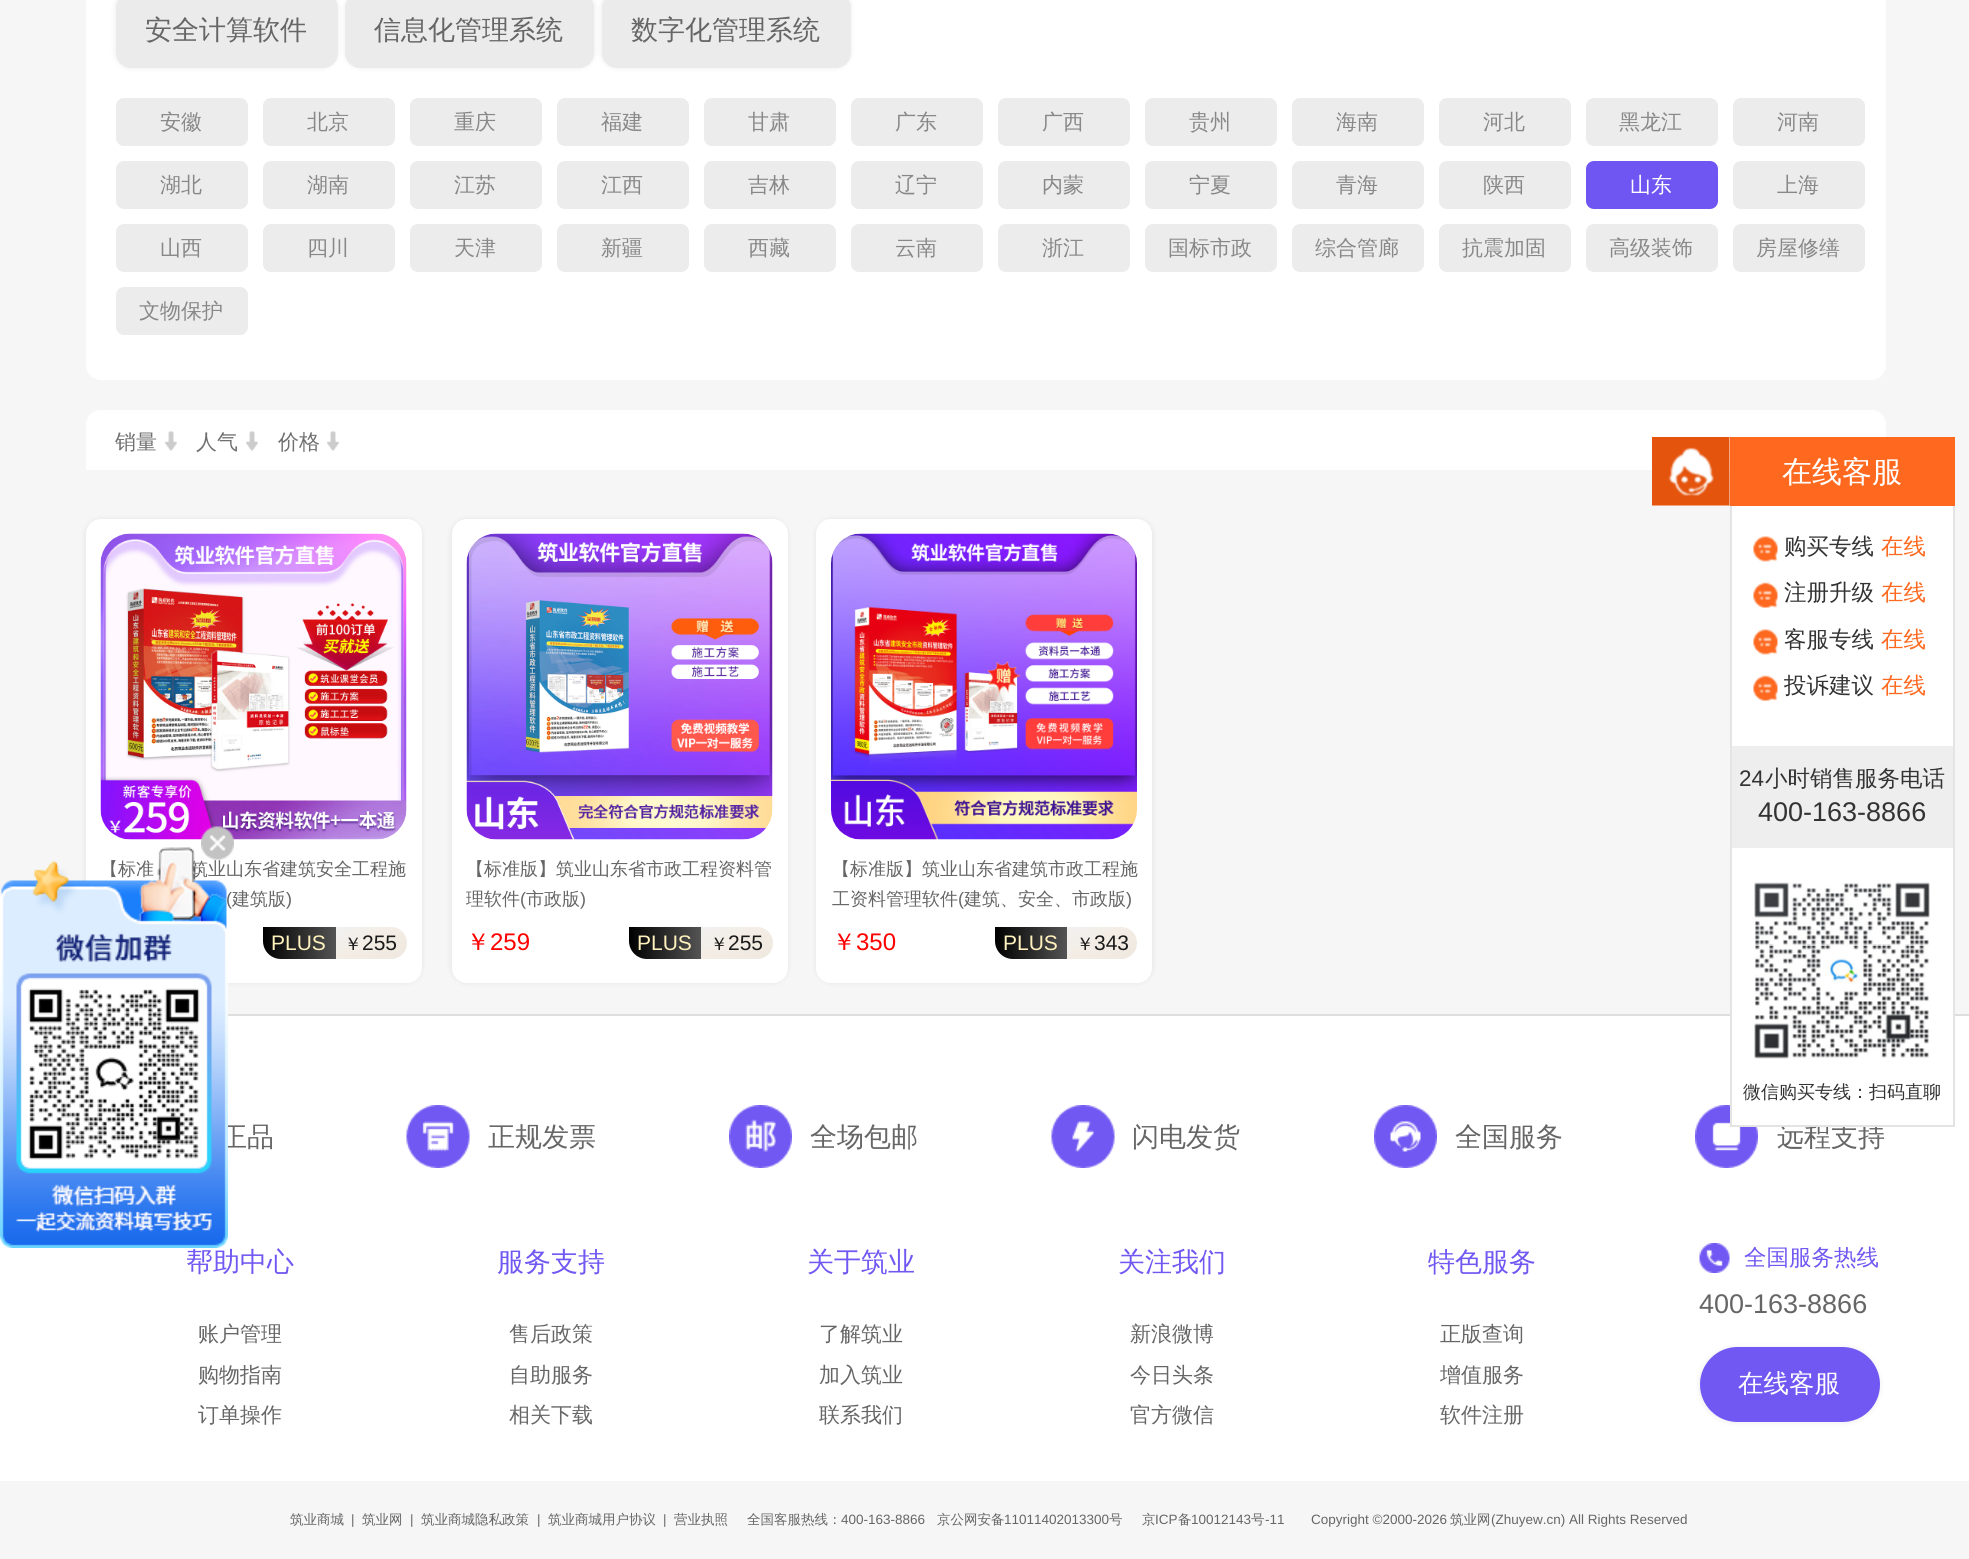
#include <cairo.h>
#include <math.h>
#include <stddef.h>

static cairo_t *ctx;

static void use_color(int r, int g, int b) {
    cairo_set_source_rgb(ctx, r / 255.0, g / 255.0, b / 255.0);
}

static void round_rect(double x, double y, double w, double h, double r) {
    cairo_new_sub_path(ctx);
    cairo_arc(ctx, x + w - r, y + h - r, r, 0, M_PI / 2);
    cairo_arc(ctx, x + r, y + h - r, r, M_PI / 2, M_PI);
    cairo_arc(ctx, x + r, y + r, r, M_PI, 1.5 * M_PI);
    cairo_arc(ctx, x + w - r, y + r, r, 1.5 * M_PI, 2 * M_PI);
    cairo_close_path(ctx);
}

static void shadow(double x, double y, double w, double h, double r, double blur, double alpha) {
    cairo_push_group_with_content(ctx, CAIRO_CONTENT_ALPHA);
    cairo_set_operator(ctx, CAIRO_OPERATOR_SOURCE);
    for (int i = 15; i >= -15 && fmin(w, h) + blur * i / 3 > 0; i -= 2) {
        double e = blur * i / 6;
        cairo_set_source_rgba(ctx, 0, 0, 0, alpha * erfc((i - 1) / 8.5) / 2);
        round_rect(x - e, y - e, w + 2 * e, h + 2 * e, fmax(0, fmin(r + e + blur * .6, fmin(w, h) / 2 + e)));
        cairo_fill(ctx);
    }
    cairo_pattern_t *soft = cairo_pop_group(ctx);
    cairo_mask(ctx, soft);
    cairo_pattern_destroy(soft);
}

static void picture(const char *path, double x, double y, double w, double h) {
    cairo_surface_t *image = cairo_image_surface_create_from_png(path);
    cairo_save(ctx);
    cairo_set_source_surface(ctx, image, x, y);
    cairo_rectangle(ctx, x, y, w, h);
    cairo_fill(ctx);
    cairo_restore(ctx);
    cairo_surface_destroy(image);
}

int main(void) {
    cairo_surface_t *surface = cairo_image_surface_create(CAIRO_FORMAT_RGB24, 1969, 1559);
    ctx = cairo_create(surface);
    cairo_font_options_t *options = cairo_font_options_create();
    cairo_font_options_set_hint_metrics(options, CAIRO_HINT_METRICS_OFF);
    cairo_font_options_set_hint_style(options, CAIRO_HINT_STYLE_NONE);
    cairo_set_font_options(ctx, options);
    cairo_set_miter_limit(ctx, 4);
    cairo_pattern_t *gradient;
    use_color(246, 246, 246);
    cairo_paint(ctx);
    use_color(255, 255, 255);
    round_rect(86, -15, 1800, 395, 15);
    cairo_fill(ctx);
    use_color(0, 0, 0);
    shadow(114, -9, 225, 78, 17, 2, 0.05);
    use_color(235, 235, 235);
    round_rect(116, -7, 222, 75, 15);
    cairo_fill(ctx);
    cairo_select_font_face(ctx, "WenQuanYi Zen Hei Medium", CAIRO_FONT_SLANT_NORMAL, CAIRO_FONT_WEIGHT_NORMAL);
    cairo_set_font_size(ctx, 27);
    use_color(102, 102, 102);
    cairo_move_to(ctx, 145, 39);
    cairo_show_text(ctx, "安全计算软件");
    use_color(0, 0, 0);
    shadow(344, -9, 252, 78, 17, 2, 0.05);
    use_color(235, 235, 235);
    round_rect(345, -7, 249, 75, 15);
    cairo_fill(ctx);
    use_color(102, 102, 102);
    cairo_move_to(ctx, 374, 39);
    cairo_show_text(ctx, "信息化管理系统");
    use_color(0, 0, 0);
    shadow(600, -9, 252, 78, 17, 2, 0.05);
    use_color(235, 235, 235);
    round_rect(602, -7, 249, 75, 15);
    cairo_fill(ctx);
    use_color(102, 102, 102);
    cairo_move_to(ctx, 631, 39);
    cairo_show_text(ctx, "数字化管理系统");
    use_color(236, 236, 236);
    round_rect(116, 98, 132, 48, 8);
    cairo_fill(ctx);
    cairo_set_font_size(ctx, 21);
    use_color(136, 136, 136);
    cairo_move_to(ctx, 160, 129);
    cairo_show_text(ctx, "安徽");
    use_color(236, 236, 236);
    round_rect(263, 98, 132, 48, 8);
    cairo_fill(ctx);
    use_color(136, 136, 136);
    cairo_move_to(ctx, 307, 129);
    cairo_show_text(ctx, "北京");
    use_color(236, 236, 236);
    round_rect(410, 98, 132, 48, 8);
    cairo_fill(ctx);
    use_color(136, 136, 136);
    cairo_move_to(ctx, 454, 129);
    cairo_show_text(ctx, "重庆");
    use_color(236, 236, 236);
    round_rect(557, 98, 132, 48, 8);
    cairo_fill(ctx);
    use_color(136, 136, 136);
    cairo_move_to(ctx, 601, 129);
    cairo_show_text(ctx, "福建");
    use_color(236, 236, 236);
    round_rect(704, 98, 132, 48, 8);
    cairo_fill(ctx);
    use_color(136, 136, 136);
    cairo_move_to(ctx, 748, 129);
    cairo_show_text(ctx, "甘肃");
    use_color(236, 236, 236);
    round_rect(851, 98, 132, 48, 8);
    cairo_fill(ctx);
    use_color(136, 136, 136);
    cairo_move_to(ctx, 895, 129);
    cairo_show_text(ctx, "广东");
    use_color(236, 236, 236);
    round_rect(998, 98, 132, 48, 8);
    cairo_fill(ctx);
    use_color(136, 136, 136);
    cairo_move_to(ctx, 1042, 129);
    cairo_show_text(ctx, "广西");
    use_color(236, 236, 236);
    round_rect(1145, 98, 132, 48, 8);
    cairo_fill(ctx);
    use_color(136, 136, 136);
    cairo_move_to(ctx, 1189, 129);
    cairo_show_text(ctx, "贵州");
    use_color(236, 236, 236);
    round_rect(1292, 98, 132, 48, 8);
    cairo_fill(ctx);
    use_color(136, 136, 136);
    cairo_move_to(ctx, 1336, 129);
    cairo_show_text(ctx, "海南");
    use_color(236, 236, 236);
    round_rect(1439, 98, 132, 48, 8);
    cairo_fill(ctx);
    use_color(136, 136, 136);
    cairo_move_to(ctx, 1483, 129);
    cairo_show_text(ctx, "河北");
    use_color(236, 236, 236);
    round_rect(1586, 98, 132, 48, 8);
    cairo_fill(ctx);
    use_color(136, 136, 136);
    cairo_move_to(ctx, 1619, 129);
    cairo_show_text(ctx, "黑龙江");
    use_color(236, 236, 236);
    round_rect(1733, 98, 132, 48, 8);
    cairo_fill(ctx);
    use_color(136, 136, 136);
    cairo_move_to(ctx, 1777, 129);
    cairo_show_text(ctx, "河南");
    use_color(236, 236, 236);
    round_rect(116, 161, 132, 48, 8);
    cairo_fill(ctx);
    use_color(136, 136, 136);
    cairo_move_to(ctx, 160, 192);
    cairo_show_text(ctx, "湖北");
    use_color(236, 236, 236);
    round_rect(263, 161, 132, 48, 8);
    cairo_fill(ctx);
    use_color(136, 136, 136);
    cairo_move_to(ctx, 307, 192);
    cairo_show_text(ctx, "湖南");
    use_color(236, 236, 236);
    round_rect(410, 161, 132, 48, 8);
    cairo_fill(ctx);
    use_color(136, 136, 136);
    cairo_move_to(ctx, 454, 192);
    cairo_show_text(ctx, "江苏");
    use_color(236, 236, 236);
    round_rect(557, 161, 132, 48, 8);
    cairo_fill(ctx);
    use_color(136, 136, 136);
    cairo_move_to(ctx, 601, 192);
    cairo_show_text(ctx, "江西");
    use_color(236, 236, 236);
    round_rect(704, 161, 132, 48, 8);
    cairo_fill(ctx);
    use_color(136, 136, 136);
    cairo_move_to(ctx, 748, 192);
    cairo_show_text(ctx, "吉林");
    use_color(236, 236, 236);
    round_rect(851, 161, 132, 48, 8);
    cairo_fill(ctx);
    use_color(136, 136, 136);
    cairo_move_to(ctx, 895, 192);
    cairo_show_text(ctx, "辽宁");
    use_color(236, 236, 236);
    round_rect(998, 161, 132, 48, 8);
    cairo_fill(ctx);
    use_color(136, 136, 136);
    cairo_move_to(ctx, 1042, 192);
    cairo_show_text(ctx, "内蒙");
    use_color(236, 236, 236);
    round_rect(1145, 161, 132, 48, 8);
    cairo_fill(ctx);
    use_color(136, 136, 136);
    cairo_move_to(ctx, 1189, 192);
    cairo_show_text(ctx, "宁夏");
    use_color(236, 236, 236);
    round_rect(1292, 161, 132, 48, 8);
    cairo_fill(ctx);
    use_color(136, 136, 136);
    cairo_move_to(ctx, 1336, 192);
    cairo_show_text(ctx, "青海");
    use_color(236, 236, 236);
    round_rect(1439, 161, 132, 48, 8);
    cairo_fill(ctx);
    use_color(136, 136, 136);
    cairo_move_to(ctx, 1483, 192);
    cairo_show_text(ctx, "陕西");
    use_color(111, 86, 242);
    round_rect(1586, 161, 132, 48, 8);
    cairo_fill(ctx);
    use_color(255, 255, 255);
    cairo_move_to(ctx, 1630, 192);
    cairo_show_text(ctx, "山东");
    use_color(236, 236, 236);
    round_rect(1733, 161, 132, 48, 8);
    cairo_fill(ctx);
    use_color(136, 136, 136);
    cairo_move_to(ctx, 1777, 192);
    cairo_show_text(ctx, "上海");
    use_color(236, 236, 236);
    round_rect(116, 224, 132, 48, 8);
    cairo_fill(ctx);
    use_color(136, 136, 136);
    cairo_move_to(ctx, 160, 255);
    cairo_show_text(ctx, "山西");
    use_color(236, 236, 236);
    round_rect(263, 224, 132, 48, 8);
    cairo_fill(ctx);
    use_color(136, 136, 136);
    cairo_move_to(ctx, 307, 255);
    cairo_show_text(ctx, "四川");
    use_color(236, 236, 236);
    round_rect(410, 224, 132, 48, 8);
    cairo_fill(ctx);
    use_color(136, 136, 136);
    cairo_move_to(ctx, 454, 255);
    cairo_show_text(ctx, "天津");
    use_color(236, 236, 236);
    round_rect(557, 224, 132, 48, 8);
    cairo_fill(ctx);
    use_color(136, 136, 136);
    cairo_move_to(ctx, 601, 255);
    cairo_show_text(ctx, "新疆");
    use_color(236, 236, 236);
    round_rect(704, 224, 132, 48, 8);
    cairo_fill(ctx);
    use_color(136, 136, 136);
    cairo_move_to(ctx, 748, 255);
    cairo_show_text(ctx, "西藏");
    use_color(236, 236, 236);
    round_rect(851, 224, 132, 48, 8);
    cairo_fill(ctx);
    use_color(136, 136, 136);
    cairo_move_to(ctx, 895, 255);
    cairo_show_text(ctx, "云南");
    use_color(236, 236, 236);
    round_rect(998, 224, 132, 48, 8);
    cairo_fill(ctx);
    use_color(136, 136, 136);
    cairo_move_to(ctx, 1042, 255);
    cairo_show_text(ctx, "浙江");
    use_color(236, 236, 236);
    round_rect(1145, 224, 132, 48, 8);
    cairo_fill(ctx);
    use_color(136, 136, 136);
    cairo_move_to(ctx, 1168, 255);
    cairo_show_text(ctx, "国标市政");
    use_color(236, 236, 236);
    round_rect(1292, 224, 132, 48, 8);
    cairo_fill(ctx);
    use_color(136, 136, 136);
    cairo_move_to(ctx, 1315, 255);
    cairo_show_text(ctx, "综合管廊");
    use_color(236, 236, 236);
    round_rect(1439, 224, 132, 48, 8);
    cairo_fill(ctx);
    use_color(136, 136, 136);
    cairo_move_to(ctx, 1462, 255);
    cairo_show_text(ctx, "抗震加固");
    use_color(236, 236, 236);
    round_rect(1586, 224, 132, 48, 8);
    cairo_fill(ctx);
    use_color(136, 136, 136);
    cairo_move_to(ctx, 1609, 255);
    cairo_show_text(ctx, "高级装饰");
    use_color(236, 236, 236);
    round_rect(1733, 224, 132, 48, 8);
    cairo_fill(ctx);
    use_color(136, 136, 136);
    cairo_move_to(ctx, 1756, 255);
    cairo_show_text(ctx, "房屋修缮");
    use_color(236, 236, 236);
    round_rect(116, 287, 132, 48, 8);
    cairo_fill(ctx);
    use_color(136, 136, 136);
    cairo_move_to(ctx, 139, 318);
    cairo_show_text(ctx, "文物保护");
    use_color(255, 255, 255);
    cairo_new_path(ctx);
    cairo_move_to(ctx, 101, 410);
    cairo_line_to(ctx, 1871, 410);
    cairo_curve_to(ctx, 1879.5, 410, 1886, 416.5, 1886, 425);
    cairo_line_to(ctx, 1886, 470);
    cairo_line_to(ctx, 86, 470);
    cairo_line_to(ctx, 86, 425);
    cairo_curve_to(ctx, 86, 416.5, 92.5, 410, 101, 410);
    cairo_close_path(ctx);
    cairo_fill(ctx);
    use_color(112, 112, 112);
    cairo_move_to(ctx, 115, 449);
    cairo_show_text(ctx, "销量");
    picture("img1.png", 165, 431, 12, 20);
    cairo_move_to(ctx, 196, 449);
    cairo_show_text(ctx, "人气");
    picture("img1.png", 246, 431, 12, 20);
    cairo_move_to(ctx, 278, 449);
    cairo_show_text(ctx, "价格");
    picture("img2.png", 327, 431, 12, 20);
    use_color(0, 0, 0);
    shadow(84, 518, 339, 466, 17, 2, 0.05);
    use_color(255, 255, 255);
    round_rect(86, 519, 336, 464, 15);
    cairo_fill(ctx);
    picture("img3.png", 100, 533, 307, 307);
    cairo_set_font_size(ctx, 18);
    use_color(102, 102, 102);
    cairo_move_to(ctx, 100, 875);
    cairo_show_text(ctx, "【标准");
    cairo_move_to(ctx, 190, 875);
    cairo_show_text(ctx, "筑业山东省建筑安全工程施");
    cairo_select_font_face(ctx, "Liberation Sans", CAIRO_FONT_SLANT_NORMAL, CAIRO_FONT_WEIGHT_NORMAL);
    cairo_move_to(ctx, 226, 905);
    cairo_show_text(ctx, "(");
    cairo_select_font_face(ctx, "WenQuanYi Zen Hei Medium", CAIRO_FONT_SLANT_NORMAL, CAIRO_FONT_WEIGHT_NORMAL);
    cairo_move_to(ctx, 232, 905);
    cairo_show_text(ctx, "建筑版");
    cairo_select_font_face(ctx, "Liberation Sans", CAIRO_FONT_SLANT_NORMAL, CAIRO_FONT_WEIGHT_NORMAL);
    cairo_move_to(ctx, 286, 905);
    cairo_show_text(ctx, ")");
    gradient = cairo_pattern_create_linear(263, 943, 336, 943);
    cairo_pattern_add_color_stop_rgba(gradient, 0, 0, 0, 0, 1);
    cairo_pattern_add_color_stop_rgba(gradient, 1, 0.329, 0.329, 0.329, 1);
    cairo_set_source(ctx, gradient);
    cairo_pattern_destroy(gradient);
    cairo_new_path(ctx);
    cairo_move_to(ctx, 263, 927);
    cairo_line_to(ctx, 336, 927);
    cairo_line_to(ctx, 336, 959);
    cairo_line_to(ctx, 281, 959);
    cairo_curve_to(ctx, 271, 959, 263, 951, 263, 941);
    cairo_close_path(ctx);
    cairo_fill(ctx);
    cairo_set_font_size(ctx, 21);
    use_color(255, 242, 190);
    cairo_move_to(ctx, 271, 950);
    cairo_show_text(ctx, "PLUS");
    gradient = cairo_pattern_create_linear(356, 916, 387, 970);
    cairo_pattern_add_color_stop_rgba(gradient, 0, 0.945, 0.945, 0.945, 1);
    cairo_pattern_add_color_stop_rgba(gradient, 0.45, 0.953, 0.929, 0.898, 1);
    cairo_pattern_add_color_stop_rgba(gradient, 1, 0.933, 0.91, 0.875, 1);
    cairo_set_source(ctx, gradient);
    cairo_pattern_destroy(gradient);
    cairo_new_path(ctx);
    cairo_move_to(ctx, 336, 927);
    cairo_line_to(ctx, 391, 927);
    cairo_curve_to(ctx, 400, 927, 407, 934, 407, 943);
    cairo_curve_to(ctx, 407, 952, 400, 959, 391, 959);
    cairo_line_to(ctx, 336, 959);
    cairo_close_path(ctx);
    cairo_fill(ctx);
    cairo_select_font_face(ctx, "WenQuanYi Zen Hei Medium", CAIRO_FONT_SLANT_NORMAL, CAIRO_FONT_WEIGHT_NORMAL);
    cairo_set_font_size(ctx, 18);
    use_color(26, 26, 26);
    cairo_move_to(ctx, 344, 950);
    cairo_show_text(ctx, "￥");
    cairo_select_font_face(ctx, "Liberation Sans", CAIRO_FONT_SLANT_NORMAL, CAIRO_FONT_WEIGHT_NORMAL);
    cairo_set_font_size(ctx, 21);
    cairo_move_to(ctx, 362, 950);
    cairo_show_text(ctx, "255");
    use_color(0, 0, 0);
    shadow(450, 518, 339, 466, 17, 2, 0.05);
    use_color(255, 255, 255);
    round_rect(452, 519, 336, 464, 15);
    cairo_fill(ctx);
    picture("img4.png", 466, 533, 307, 307);
    cairo_select_font_face(ctx, "WenQuanYi Zen Hei Medium", CAIRO_FONT_SLANT_NORMAL, CAIRO_FONT_WEIGHT_NORMAL);
    cairo_set_font_size(ctx, 18);
    use_color(102, 102, 102);
    cairo_move_to(ctx, 466, 875);
    cairo_show_text(ctx, "【标准版】筑业山东省市政工程资料管");
    cairo_move_to(ctx, 466, 905);
    cairo_show_text(ctx, "理软件");
    cairo_select_font_face(ctx, "Liberation Sans", CAIRO_FONT_SLANT_NORMAL, CAIRO_FONT_WEIGHT_NORMAL);
    cairo_move_to(ctx, 520, 905);
    cairo_show_text(ctx, "(");
    cairo_select_font_face(ctx, "WenQuanYi Zen Hei Medium", CAIRO_FONT_SLANT_NORMAL, CAIRO_FONT_WEIGHT_NORMAL);
    cairo_move_to(ctx, 526, 905);
    cairo_show_text(ctx, "市政版");
    cairo_select_font_face(ctx, "Liberation Sans", CAIRO_FONT_SLANT_NORMAL, CAIRO_FONT_WEIGHT_NORMAL);
    cairo_move_to(ctx, 580, 905);
    cairo_show_text(ctx, ")");
    cairo_select_font_face(ctx, "WenQuanYi Zen Hei Medium", CAIRO_FONT_SLANT_NORMAL, CAIRO_FONT_WEIGHT_NORMAL);
    cairo_set_font_size(ctx, 24);
    use_color(255, 0, 0);
    cairo_move_to(ctx, 466, 950);
    cairo_show_text(ctx, "￥");
    cairo_select_font_face(ctx, "Liberation Sans", CAIRO_FONT_SLANT_NORMAL, CAIRO_FONT_WEIGHT_NORMAL);
    cairo_move_to(ctx, 490, 950);
    cairo_show_text(ctx, "259");
    gradient = cairo_pattern_create_linear(629, 943, 701, 943);
    cairo_pattern_add_color_stop_rgba(gradient, 0, 0, 0, 0, 1);
    cairo_pattern_add_color_stop_rgba(gradient, 1, 0.329, 0.329, 0.329, 1);
    cairo_set_source(ctx, gradient);
    cairo_pattern_destroy(gradient);
    cairo_new_path(ctx);
    cairo_move_to(ctx, 629, 927);
    cairo_line_to(ctx, 701, 927);
    cairo_line_to(ctx, 701, 959);
    cairo_line_to(ctx, 647, 959);
    cairo_curve_to(ctx, 637, 959, 629, 951, 629, 941);
    cairo_close_path(ctx);
    cairo_fill(ctx);
    cairo_set_font_size(ctx, 21);
    use_color(255, 242, 190);
    cairo_move_to(ctx, 637, 950);
    cairo_show_text(ctx, "PLUS");
    gradient = cairo_pattern_create_linear(721, 915, 752, 970);
    cairo_pattern_add_color_stop_rgba(gradient, 0, 0.945, 0.945, 0.945, 1);
    cairo_pattern_add_color_stop_rgba(gradient, 0.45, 0.953, 0.929, 0.898, 1);
    cairo_pattern_add_color_stop_rgba(gradient, 1, 0.933, 0.91, 0.875, 1);
    cairo_set_source(ctx, gradient);
    cairo_pattern_destroy(gradient);
    cairo_new_path(ctx);
    cairo_move_to(ctx, 701, 927);
    cairo_line_to(ctx, 757, 927);
    cairo_curve_to(ctx, 766, 927, 773, 934, 773, 943);
    cairo_curve_to(ctx, 773, 952, 766, 959, 757, 959);
    cairo_line_to(ctx, 701, 959);
    cairo_close_path(ctx);
    cairo_fill(ctx);
    cairo_select_font_face(ctx, "WenQuanYi Zen Hei Medium", CAIRO_FONT_SLANT_NORMAL, CAIRO_FONT_WEIGHT_NORMAL);
    cairo_set_font_size(ctx, 18);
    use_color(26, 26, 26);
    cairo_move_to(ctx, 710, 950);
    cairo_show_text(ctx, "￥");
    cairo_select_font_face(ctx, "Liberation Sans", CAIRO_FONT_SLANT_NORMAL, CAIRO_FONT_WEIGHT_NORMAL);
    cairo_set_font_size(ctx, 21);
    cairo_move_to(ctx, 728, 950);
    cairo_show_text(ctx, "255");
    use_color(0, 0, 0);
    shadow(815, 518, 339, 466, 17, 2, 0.05);
    use_color(255, 255, 255);
    round_rect(816, 519, 336, 464, 15);
    cairo_fill(ctx);
    picture("img5.png", 831, 533, 306, 307);
    cairo_select_font_face(ctx, "WenQuanYi Zen Hei Medium", CAIRO_FONT_SLANT_NORMAL, CAIRO_FONT_WEIGHT_NORMAL);
    cairo_set_font_size(ctx, 18);
    use_color(102, 102, 102);
    cairo_move_to(ctx, 832, 875);
    cairo_show_text(ctx, "【标准版】筑业山东省建筑市政工程施");
    cairo_move_to(ctx, 832, 905);
    cairo_show_text(ctx, "工资料管理软件");
    cairo_select_font_face(ctx, "Liberation Sans", CAIRO_FONT_SLANT_NORMAL, CAIRO_FONT_WEIGHT_NORMAL);
    cairo_move_to(ctx, 958, 905);
    cairo_show_text(ctx, "(");
    cairo_select_font_face(ctx, "WenQuanYi Zen Hei Medium", CAIRO_FONT_SLANT_NORMAL, CAIRO_FONT_WEIGHT_NORMAL);
    cairo_move_to(ctx, 964, 905);
    cairo_show_text(ctx, "建筑、安全、市政版");
    cairo_select_font_face(ctx, "Liberation Sans", CAIRO_FONT_SLANT_NORMAL, CAIRO_FONT_WEIGHT_NORMAL);
    cairo_move_to(ctx, 1126, 905);
    cairo_show_text(ctx, ")");
    cairo_select_font_face(ctx, "WenQuanYi Zen Hei Medium", CAIRO_FONT_SLANT_NORMAL, CAIRO_FONT_WEIGHT_NORMAL);
    cairo_set_font_size(ctx, 24);
    use_color(255, 0, 0);
    cairo_move_to(ctx, 832, 950);
    cairo_show_text(ctx, "￥");
    cairo_select_font_face(ctx, "Liberation Sans", CAIRO_FONT_SLANT_NORMAL, CAIRO_FONT_WEIGHT_NORMAL);
    cairo_move_to(ctx, 856, 950);
    cairo_show_text(ctx, "350");
    gradient = cairo_pattern_create_linear(995, 943, 1067, 943);
    cairo_pattern_add_color_stop_rgba(gradient, 0, 0, 0, 0, 1);
    cairo_pattern_add_color_stop_rgba(gradient, 1, 0.329, 0.329, 0.329, 1);
    cairo_set_source(ctx, gradient);
    cairo_pattern_destroy(gradient);
    cairo_new_path(ctx);
    cairo_move_to(ctx, 995, 927);
    cairo_line_to(ctx, 1067, 927);
    cairo_line_to(ctx, 1067, 959);
    cairo_line_to(ctx, 1013, 959);
    cairo_curve_to(ctx, 1003, 959, 995, 951, 995, 941);
    cairo_close_path(ctx);
    cairo_fill(ctx);
    cairo_set_font_size(ctx, 21);
    use_color(255, 242, 190);
    cairo_move_to(ctx, 1003, 950);
    cairo_show_text(ctx, "PLUS");
    gradient = cairo_pattern_create_linear(1086, 916, 1117, 970);
    cairo_pattern_add_color_stop_rgba(gradient, 0, 0.945, 0.945, 0.945, 1);
    cairo_pattern_add_color_stop_rgba(gradient, 0.45, 0.953, 0.929, 0.898, 1);
    cairo_pattern_add_color_stop_rgba(gradient, 1, 0.933, 0.91, 0.875, 1);
    cairo_set_source(ctx, gradient);
    cairo_pattern_destroy(gradient);
    cairo_new_path(ctx);
    cairo_move_to(ctx, 1067, 927);
    cairo_line_to(ctx, 1121, 927);
    cairo_curve_to(ctx, 1130, 927, 1137, 934, 1137, 943);
    cairo_curve_to(ctx, 1137, 952, 1130, 959, 1121, 959);
    cairo_line_to(ctx, 1067, 959);
    cairo_close_path(ctx);
    cairo_fill(ctx);
    cairo_select_font_face(ctx, "WenQuanYi Zen Hei Medium", CAIRO_FONT_SLANT_NORMAL, CAIRO_FONT_WEIGHT_NORMAL);
    cairo_set_font_size(ctx, 18);
    use_color(26, 26, 26);
    cairo_move_to(ctx, 1076, 950);
    cairo_show_text(ctx, "￥");
    cairo_select_font_face(ctx, "Liberation Sans", CAIRO_FONT_SLANT_NORMAL, CAIRO_FONT_WEIGHT_NORMAL);
    cairo_set_font_size(ctx, 21);
    cairo_move_to(ctx, 1094, 950);
    cairo_show_text(ctx, "343");
    picture("img6.png", 1652, 437, 78, 69);
    use_color(255, 105, 31);
    cairo_rectangle(ctx, 1730, 437, 225, 69);
    cairo_fill(ctx);
    cairo_select_font_face(ctx, "WenQuanYi Zen Hei Medium", CAIRO_FONT_SLANT_NORMAL, CAIRO_FONT_WEIGHT_NORMAL);
    cairo_set_font_size(ctx, 30);
    use_color(255, 255, 255);
    cairo_move_to(ctx, 1782, 482);
    cairo_show_text(ctx, "在线客服");
    cairo_rectangle(ctx, 1732, 506, 221, 240);
    cairo_fill(ctx);
    cairo_rectangle(ctx, 0, 1016, 1969, 465);
    cairo_fill(ctx);
    use_color(222, 222, 222);
    cairo_rectangle(ctx, 228, 1014, 1741, 2);
    cairo_fill(ctx);
    use_color(228, 228, 228);
    cairo_rectangle(ctx, 1953, 506, 2, 621);
    cairo_fill(ctx);
    cairo_rectangle(ctx, 1730, 506, 2, 342);
    cairo_fill(ctx);
    picture("img7.png", 1753, 536, 25, 26);
    cairo_set_font_size(ctx, 22.5);
    use_color(51, 51, 51);
    cairo_move_to(ctx, 1784, 554);
    cairo_show_text(ctx, "购买专线");
    use_color(255, 105, 31);
    cairo_move_to(ctx, 1881, 554);
    cairo_show_text(ctx, "在线");
    picture("img8.png", 1753, 582, 25, 26);
    use_color(51, 51, 51);
    cairo_move_to(ctx, 1784, 600);
    cairo_show_text(ctx, "注册升级");
    use_color(255, 105, 31);
    cairo_move_to(ctx, 1881, 600);
    cairo_show_text(ctx, "在线");
    picture("img7.png", 1753, 629, 25, 26);
    use_color(51, 51, 51);
    cairo_move_to(ctx, 1784, 647);
    cairo_show_text(ctx, "客服专线");
    use_color(255, 105, 31);
    cairo_move_to(ctx, 1881, 647);
    cairo_show_text(ctx, "在线");
    picture("img9.png", 1753, 675, 25, 26);
    use_color(51, 51, 51);
    cairo_move_to(ctx, 1784, 693);
    cairo_show_text(ctx, "投诉建议");
    use_color(255, 105, 31);
    cairo_move_to(ctx, 1881, 693);
    cairo_show_text(ctx, "在线");
    use_color(238, 238, 238);
    cairo_rectangle(ctx, 1732, 746, 221, 102);
    cairo_fill(ctx);
    cairo_select_font_face(ctx, "Liberation Sans", CAIRO_FONT_SLANT_NORMAL, CAIRO_FONT_WEIGHT_NORMAL);
    use_color(51, 51, 51);
    cairo_move_to(ctx, 1739, 786);
    cairo_show_text(ctx, "24");
    cairo_select_font_face(ctx, "WenQuanYi Zen Hei Medium", CAIRO_FONT_SLANT_NORMAL, CAIRO_FONT_WEIGHT_NORMAL);
    cairo_move_to(ctx, 1765, 786);
    cairo_show_text(ctx, "小时销售服务电话");
    cairo_select_font_face(ctx, "Liberation Sans", CAIRO_FONT_SLANT_NORMAL, CAIRO_FONT_WEIGHT_NORMAL);
    cairo_set_font_size(ctx, 27);
    cairo_move_to(ctx, 1758, 821);
    cairo_show_text(ctx, "400-163-8866");
    picture("img17.png", 1695, 1105, 63, 63);
    cairo_select_font_face(ctx, "WenQuanYi Zen Hei Medium", CAIRO_FONT_SLANT_NORMAL, CAIRO_FONT_WEIGHT_NORMAL);
    use_color(102, 102, 102);
    cairo_move_to(ctx, 1777, 1146);
    cairo_show_text(ctx, "远程支持");
    use_color(255, 255, 255);
    cairo_rectangle(ctx, 1732, 848, 221, 277);
    cairo_fill(ctx);
    use_color(228, 228, 228);
    cairo_rectangle(ctx, 1730, 1125, 225, 2);
    cairo_fill(ctx);
    cairo_rectangle(ctx, 1730, 848, 2, 279);
    cairo_fill(ctx);
    picture("img10.png", 1754, 882, 176, 177);
    cairo_set_font_size(ctx, 18);
    use_color(51, 51, 51);
    cairo_move_to(ctx, 1743, 1098);
    cairo_show_text(ctx, "微信购买专线：扫码直聊");
    cairo_set_font_size(ctx, 27);
    use_color(102, 102, 102);
    cairo_move_to(ctx, 220, 1146);
    cairo_show_text(ctx, "正品");
    picture("img12.png", 0, 847, 228, 401);
    picture("img11.png", 201, 826, 33, 34);
    picture("img13.png", 406, 1105, 64, 63);
    cairo_move_to(ctx, 488, 1146);
    cairo_show_text(ctx, "正规发票");
    picture("img14.png", 729, 1105, 63, 63);
    cairo_move_to(ctx, 810, 1146);
    cairo_show_text(ctx, "全场包邮");
    picture("img15.png", 1051, 1105, 64, 63);
    cairo_move_to(ctx, 1132, 1146);
    cairo_show_text(ctx, "闪电发货");
    picture("img16.png", 1374, 1105, 63, 63);
    cairo_move_to(ctx, 1455, 1146);
    cairo_show_text(ctx, "全国服务");
    use_color(113, 88, 242);
    cairo_move_to(ctx, 186, 1271);
    cairo_show_text(ctx, "帮助中心");
    cairo_set_font_size(ctx, 21);
    use_color(102, 102, 102);
    cairo_move_to(ctx, 198, 1341);
    cairo_show_text(ctx, "账户管理");
    cairo_move_to(ctx, 198, 1382);
    cairo_show_text(ctx, "购物指南");
    cairo_move_to(ctx, 198, 1422);
    cairo_show_text(ctx, "订单操作");
    cairo_set_font_size(ctx, 27);
    use_color(113, 88, 242);
    cairo_move_to(ctx, 497, 1271);
    cairo_show_text(ctx, "服务支持");
    cairo_set_font_size(ctx, 21);
    use_color(102, 102, 102);
    cairo_move_to(ctx, 509, 1341);
    cairo_show_text(ctx, "售后政策");
    cairo_move_to(ctx, 509, 1382);
    cairo_show_text(ctx, "自助服务");
    cairo_move_to(ctx, 509, 1422);
    cairo_show_text(ctx, "相关下载");
    cairo_set_font_size(ctx, 27);
    use_color(113, 88, 242);
    cairo_move_to(ctx, 807, 1271);
    cairo_show_text(ctx, "关于筑业");
    cairo_set_font_size(ctx, 21);
    use_color(102, 102, 102);
    cairo_move_to(ctx, 819, 1341);
    cairo_show_text(ctx, "了解筑业");
    cairo_move_to(ctx, 819, 1382);
    cairo_show_text(ctx, "加入筑业");
    cairo_move_to(ctx, 819, 1422);
    cairo_show_text(ctx, "联系我们");
    cairo_set_font_size(ctx, 27);
    use_color(113, 88, 242);
    cairo_move_to(ctx, 1118, 1271);
    cairo_show_text(ctx, "关注我们");
    cairo_set_font_size(ctx, 21);
    use_color(102, 102, 102);
    cairo_move_to(ctx, 1130, 1341);
    cairo_show_text(ctx, "新浪微博");
    cairo_move_to(ctx, 1130, 1382);
    cairo_show_text(ctx, "今日头条");
    cairo_move_to(ctx, 1130, 1422);
    cairo_show_text(ctx, "官方微信");
    cairo_set_font_size(ctx, 27);
    use_color(113, 88, 242);
    cairo_move_to(ctx, 1428, 1271);
    cairo_show_text(ctx, "特色服务");
    cairo_set_font_size(ctx, 21);
    use_color(102, 102, 102);
    cairo_move_to(ctx, 1440, 1341);
    cairo_show_text(ctx, "正版查询");
    cairo_move_to(ctx, 1440, 1382);
    cairo_show_text(ctx, "增值服务");
    cairo_move_to(ctx, 1440, 1422);
    cairo_show_text(ctx, "软件注册");
    picture("img18.png", 1699, 1243, 31, 30);
    cairo_set_font_size(ctx, 22.5);
    use_color(113, 88, 242);
    cairo_move_to(ctx, 1744, 1265);
    cairo_show_text(ctx, "全国服务热线");
    cairo_select_font_face(ctx, "Liberation Sans", CAIRO_FONT_SLANT_NORMAL, CAIRO_FONT_WEIGHT_NORMAL);
    cairo_set_font_size(ctx, 27);
    use_color(102, 102, 102);
    cairo_move_to(ctx, 1699, 1313);
    cairo_show_text(ctx, "400-163-8866");
    use_color(0, 0, 0);
    shadow(1698, 1346, 183, 78, 39, 2, 0.05);
    use_color(113, 88, 242);
    round_rect(1700, 1347, 180, 75, 37.5);
    cairo_fill(ctx);
    cairo_select_font_face(ctx, "WenQuanYi Zen Hei Medium", CAIRO_FONT_SLANT_NORMAL, CAIRO_FONT_WEIGHT_NORMAL);
    cairo_set_font_size(ctx, 25.5);
    use_color(255, 255, 255);
    cairo_move_to(ctx, 1738, 1392);
    cairo_show_text(ctx, "在线客服");
    cairo_set_font_size(ctx, 13.5);
    use_color(102, 102, 102);
    cairo_move_to(ctx, 290, 1524);
    cairo_show_text(ctx, "筑业商城");
    cairo_select_font_face(ctx, "Liberation Sans", CAIRO_FONT_SLANT_NORMAL, CAIRO_FONT_WEIGHT_NORMAL);
    cairo_move_to(ctx, 351, 1524);
    cairo_show_text(ctx, "|");
    cairo_select_font_face(ctx, "WenQuanYi Zen Hei Medium", CAIRO_FONT_SLANT_NORMAL, CAIRO_FONT_WEIGHT_NORMAL);
    cairo_move_to(ctx, 362, 1524);
    cairo_show_text(ctx, "筑业网");
    cairo_select_font_face(ctx, "Liberation Sans", CAIRO_FONT_SLANT_NORMAL, CAIRO_FONT_WEIGHT_NORMAL);
    cairo_move_to(ctx, 410, 1524);
    cairo_show_text(ctx, "|");
    cairo_select_font_face(ctx, "WenQuanYi Zen Hei Medium", CAIRO_FONT_SLANT_NORMAL, CAIRO_FONT_WEIGHT_NORMAL);
    cairo_move_to(ctx, 421, 1524);
    cairo_show_text(ctx, "筑业商城隐私政策");
    cairo_select_font_face(ctx, "Liberation Sans", CAIRO_FONT_SLANT_NORMAL, CAIRO_FONT_WEIGHT_NORMAL);
    cairo_move_to(ctx, 537, 1524);
    cairo_show_text(ctx, "|");
    cairo_select_font_face(ctx, "WenQuanYi Zen Hei Medium", CAIRO_FONT_SLANT_NORMAL, CAIRO_FONT_WEIGHT_NORMAL);
    cairo_move_to(ctx, 548, 1524);
    cairo_show_text(ctx, "筑业商城用户协议");
    cairo_select_font_face(ctx, "Liberation Sans", CAIRO_FONT_SLANT_NORMAL, CAIRO_FONT_WEIGHT_NORMAL);
    cairo_move_to(ctx, 663, 1524);
    cairo_show_text(ctx, "|");
    cairo_select_font_face(ctx, "WenQuanYi Zen Hei Medium", CAIRO_FONT_SLANT_NORMAL, CAIRO_FONT_WEIGHT_NORMAL);
    cairo_move_to(ctx, 674, 1524);
    cairo_show_text(ctx, "营业执照");
    cairo_move_to(ctx, 747, 1524);
    cairo_show_text(ctx, "全国客服热线：");
    cairo_select_font_face(ctx, "Liberation Sans", CAIRO_FONT_SLANT_NORMAL, CAIRO_FONT_WEIGHT_NORMAL);
    cairo_move_to(ctx, 841, 1524);
    cairo_show_text(ctx, "400-163-8866");
    cairo_select_font_face(ctx, "WenQuanYi Zen Hei Medium", CAIRO_FONT_SLANT_NORMAL, CAIRO_FONT_WEIGHT_NORMAL);
    cairo_move_to(ctx, 937, 1524);
    cairo_show_text(ctx, "京公网安备");
    cairo_select_font_face(ctx, "Liberation Sans", CAIRO_FONT_SLANT_NORMAL, CAIRO_FONT_WEIGHT_NORMAL);
    cairo_move_to(ctx, 1004, 1524);
    cairo_show_text(ctx, "11011402013300");
    cairo_select_font_face(ctx, "WenQuanYi Zen Hei Medium", CAIRO_FONT_SLANT_NORMAL, CAIRO_FONT_WEIGHT_NORMAL);
    cairo_move_to(ctx, 1109, 1524);
    cairo_show_text(ctx, "号");
    cairo_move_to(ctx, 1142, 1524);
    cairo_show_text(ctx, "京");
    cairo_select_font_face(ctx, "Liberation Sans", CAIRO_FONT_SLANT_NORMAL, CAIRO_FONT_WEIGHT_NORMAL);
    cairo_move_to(ctx, 1155, 1524);
    cairo_show_text(ctx, "ICP");
    cairo_select_font_face(ctx, "WenQuanYi Zen Hei Medium", CAIRO_FONT_SLANT_NORMAL, CAIRO_FONT_WEIGHT_NORMAL);
    cairo_move_to(ctx, 1178, 1524);
    cairo_show_text(ctx, "备");
    cairo_select_font_face(ctx, "Liberation Sans", CAIRO_FONT_SLANT_NORMAL, CAIRO_FONT_WEIGHT_NORMAL);
    cairo_move_to(ctx, 1191, 1524);
    cairo_show_text(ctx, "10012143");
    cairo_select_font_face(ctx, "WenQuanYi Zen Hei Medium", CAIRO_FONT_SLANT_NORMAL, CAIRO_FONT_WEIGHT_NORMAL);
    cairo_move_to(ctx, 1251, 1524);
    cairo_show_text(ctx, "号");
    cairo_select_font_face(ctx, "Liberation Sans", CAIRO_FONT_SLANT_NORMAL, CAIRO_FONT_WEIGHT_NORMAL);
    cairo_move_to(ctx, 1265, 1524);
    cairo_show_text(ctx, "-11");
    cairo_move_to(ctx, 1311, 1524);
    cairo_show_text(ctx, "Copyright ©2000-2026");
    cairo_select_font_face(ctx, "WenQuanYi Zen Hei Medium", CAIRO_FONT_SLANT_NORMAL, CAIRO_FONT_WEIGHT_NORMAL);
    cairo_move_to(ctx, 1450, 1524);
    cairo_show_text(ctx, "筑业网");
    cairo_select_font_face(ctx, "Liberation Sans", CAIRO_FONT_SLANT_NORMAL, CAIRO_FONT_WEIGHT_NORMAL);
    cairo_move_to(ctx, 1491, 1524);
    cairo_show_text(ctx, "(Zhuyew.cn) All Rights Reserved");
    cairo_surface_write_to_png(surface, "result.png");
    cairo_font_options_destroy(options);
    cairo_destroy(ctx);
    cairo_surface_destroy(surface);
    return 0;
}
